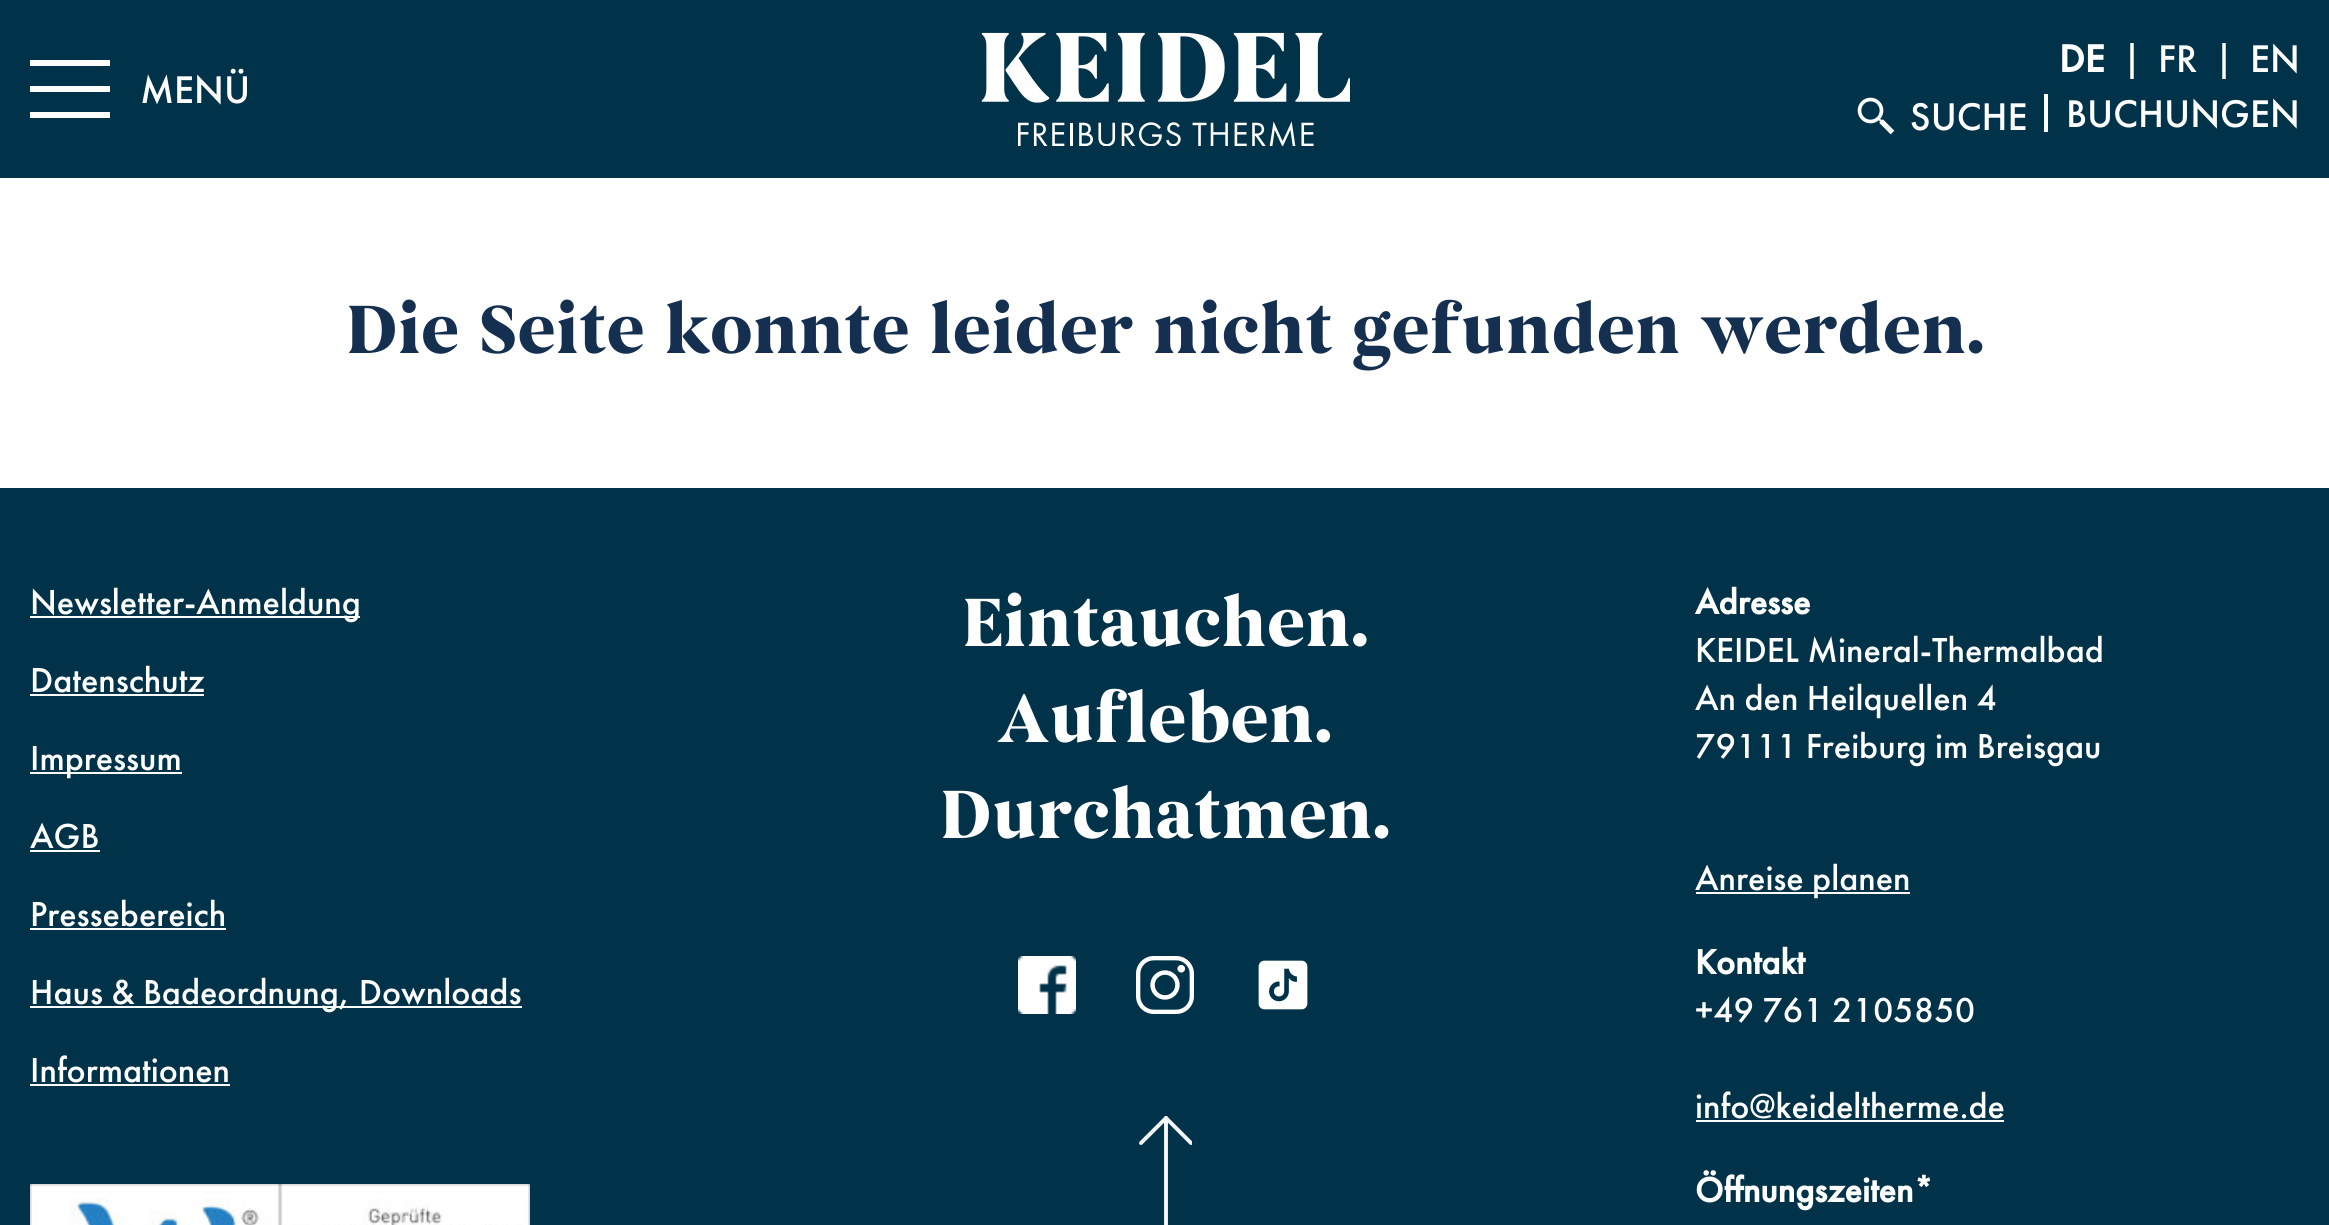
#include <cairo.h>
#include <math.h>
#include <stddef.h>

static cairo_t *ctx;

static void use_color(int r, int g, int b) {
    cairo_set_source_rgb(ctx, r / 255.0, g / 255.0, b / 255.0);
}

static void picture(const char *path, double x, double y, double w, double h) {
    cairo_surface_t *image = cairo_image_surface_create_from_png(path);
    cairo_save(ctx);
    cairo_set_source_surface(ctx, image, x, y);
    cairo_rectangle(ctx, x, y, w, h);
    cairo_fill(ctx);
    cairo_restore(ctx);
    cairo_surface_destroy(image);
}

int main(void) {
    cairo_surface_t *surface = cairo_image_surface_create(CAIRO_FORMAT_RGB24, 2329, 1225);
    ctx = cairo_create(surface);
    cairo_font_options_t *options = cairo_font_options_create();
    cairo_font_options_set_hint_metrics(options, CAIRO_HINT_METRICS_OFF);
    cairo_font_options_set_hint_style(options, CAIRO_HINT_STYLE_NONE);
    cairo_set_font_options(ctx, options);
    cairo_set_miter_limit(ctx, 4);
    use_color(255, 255, 255);
    cairo_paint(ctx);
    use_color(0, 51, 73);
    cairo_rectangle(ctx, 0, 0, 2329, 178);
    cairo_fill(ctx);
    use_color(255, 255, 255);
    cairo_rectangle(ctx, 30, 60, 80, 6);
    cairo_fill(ctx);
    cairo_rectangle(ctx, 30, 86, 80, 6);
    cairo_fill(ctx);
    cairo_rectangle(ctx, 30, 112, 80, 6);
    cairo_fill(ctx);
    cairo_select_font_face(ctx, "Futura PT Medium", CAIRO_FONT_SLANT_NORMAL, CAIRO_FONT_WEIGHT_NORMAL);
    cairo_set_font_size(ctx, 40);
    cairo_move_to(ctx, 140, 103);
    cairo_show_text(ctx, "MENÜ");
    picture("img1.png", 981, 32, 369, 114);
    cairo_select_font_face(ctx, "Futura PT", CAIRO_FONT_SLANT_NORMAL, CAIRO_FONT_WEIGHT_BOLD);
    cairo_move_to(ctx, 2059, 72);
    cairo_show_text(ctx, "DE");
    cairo_select_font_face(ctx, "Futura PT Medium", CAIRO_FONT_SLANT_NORMAL, CAIRO_FONT_WEIGHT_NORMAL);
    cairo_set_font_size(ctx, 36);
    cairo_move_to(ctx, 2123, 70);
    cairo_show_text(ctx, "|");
    cairo_set_font_size(ctx, 40);
    cairo_move_to(ctx, 2158, 72);
    cairo_show_text(ctx, "FR");
    cairo_set_font_size(ctx, 36);
    cairo_move_to(ctx, 2215, 70);
    cairo_show_text(ctx, "|");
    cairo_set_font_size(ctx, 40);
    cairo_move_to(ctx, 2250, 72);
    cairo_show_text(ctx, "EN");
    picture("img2.png", 1857, 97, 38, 38);
    cairo_move_to(ctx, 1910, 130);
    cairo_show_text(ctx, "SUCHE");
    cairo_rectangle(ctx, 2044, 94, 4, 38);
    cairo_fill(ctx);
    cairo_move_to(ctx, 2066, 127);
    cairo_show_text(ctx, "BUCHUNGEN");
    cairo_select_font_face(ctx, "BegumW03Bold", CAIRO_FONT_SLANT_NORMAL, CAIRO_FONT_WEIGHT_BOLD);
    cairo_set_font_size(ctx, 70);
    use_color(20, 47, 80);
    cairo_move_to(ctx, 345, 353);
    cairo_show_text(ctx, "Die Seite konnte leider nicht gefunden werden.");
    use_color(0, 51, 73);
    cairo_rectangle(ctx, 0, 488, 2329, 737);
    cairo_fill(ctx);
    use_color(255, 255, 255);
    cairo_rectangle(ctx, 30, 616, 330, 2);
    cairo_fill(ctx);
    cairo_select_font_face(ctx, "Futura PT Medium", CAIRO_FONT_SLANT_NORMAL, CAIRO_FONT_WEIGHT_NORMAL);
    cairo_set_font_size(ctx, 36);
    cairo_move_to(ctx, 30, 614);
    cairo_show_text(ctx, "Newsletter-Anmeldung");
    cairo_move_to(ctx, 30, 692);
    cairo_show_text(ctx, "Datenschutz");
    cairo_rectangle(ctx, 30, 694, 174, 2);
    cairo_fill(ctx);
    cairo_rectangle(ctx, 30, 772, 152, 2);
    cairo_fill(ctx);
    cairo_move_to(ctx, 30, 770);
    cairo_show_text(ctx, "Impressum");
    cairo_move_to(ctx, 30, 848);
    cairo_show_text(ctx, "AGB");
    cairo_rectangle(ctx, 30, 850, 70, 2);
    cairo_fill(ctx);
    cairo_move_to(ctx, 30, 926);
    cairo_show_text(ctx, "Pressebereich");
    cairo_rectangle(ctx, 30, 928, 196, 2);
    cairo_fill(ctx);
    cairo_rectangle(ctx, 30, 1006, 492, 2);
    cairo_fill(ctx);
    cairo_move_to(ctx, 30, 1004);
    cairo_show_text(ctx, "Haus & Badeordnung, Downloads");
    cairo_move_to(ctx, 30, 1082);
    cairo_show_text(ctx, "Informationen");
    cairo_rectangle(ctx, 30, 1084, 200, 2);
    cairo_fill(ctx);
    picture("img3.png", 30, 1184, 500, 41);
    cairo_select_font_face(ctx, "BegumW03Bold", CAIRO_FONT_SLANT_NORMAL, CAIRO_FONT_WEIGHT_BOLD);
    cairo_set_font_size(ctx, 70);
    cairo_move_to(ctx, 961, 646);
    cairo_show_text(ctx, "Eintauchen.");
    cairo_move_to(ctx, 997, 742);
    cairo_show_text(ctx, "Aufleben.");
    cairo_move_to(ctx, 939, 838);
    cairo_show_text(ctx, "Durchatmen.");
    picture("img4.png", 1018, 956, 58, 58);
    picture("img5.png", 1136, 956, 58, 58);
    picture("img6.png", 1258, 960, 50, 50);
    cairo_new_path(ctx);
    cairo_move_to(ctx, 1166, 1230.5);
    cairo_line_to(ctx, 1166, 1118);
    use_color(247, 247, 247);
    cairo_set_line_width(ctx, 3.9);
    cairo_set_line_cap(ctx, CAIRO_LINE_CAP_ROUND);
    cairo_set_line_join(ctx, CAIRO_LINE_JOIN_ROUND);
    cairo_stroke(ctx);
    cairo_save(ctx);
    cairo_rectangle(ctx, 1138, 1116, 54, 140);
    cairo_clip(ctx);
    cairo_new_path(ctx);
    cairo_move_to(ctx, 1141, 1143);
    cairo_line_to(ctx, 1166, 1118);
    cairo_line_to(ctx, 1191, 1143);
    cairo_stroke(ctx);
    cairo_restore(ctx);
    cairo_select_font_face(ctx, "Futura PT", CAIRO_FONT_SLANT_NORMAL, CAIRO_FONT_WEIGHT_BOLD);
    cairo_set_font_size(ctx, 36);
    use_color(255, 255, 255);
    cairo_move_to(ctx, 1695, 614);
    cairo_show_text(ctx, "Adresse");
    cairo_select_font_face(ctx, "Futura PT Medium", CAIRO_FONT_SLANT_NORMAL, CAIRO_FONT_WEIGHT_NORMAL);
    cairo_move_to(ctx, 1695, 662);
    cairo_show_text(ctx, "KEIDEL Mineral-Thermalbad");
    cairo_move_to(ctx, 1695, 710);
    cairo_show_text(ctx, "An den Heilquellen 4");
    cairo_move_to(ctx, 1695, 758);
    cairo_show_text(ctx, "79111 Freiburg im Breisgau");
    cairo_rectangle(ctx, 1696, 892, 214, 2);
    cairo_fill(ctx);
    cairo_move_to(ctx, 1695, 890);
    cairo_show_text(ctx, "Anreise planen");
    cairo_select_font_face(ctx, "Futura PT", CAIRO_FONT_SLANT_NORMAL, CAIRO_FONT_WEIGHT_BOLD);
    cairo_move_to(ctx, 1695, 974);
    cairo_show_text(ctx, "Kontakt");
    cairo_select_font_face(ctx, "Futura PT Medium", CAIRO_FONT_SLANT_NORMAL, CAIRO_FONT_WEIGHT_NORMAL);
    cairo_move_to(ctx, 1695, 1022);
    cairo_show_text(ctx, "+49 761 2105850");
    cairo_move_to(ctx, 1695, 1118);
    cairo_show_text(ctx, "info@keideltherme.de");
    cairo_rectangle(ctx, 1696, 1120, 308, 2);
    cairo_fill(ctx);
    cairo_select_font_face(ctx, "Futura PT", CAIRO_FONT_SLANT_NORMAL, CAIRO_FONT_WEIGHT_BOLD);
    cairo_move_to(ctx, 1695, 1202);
    cairo_show_text(ctx, "Öffnungszeiten*");
    cairo_surface_write_to_png(surface, "result.png");
    cairo_font_options_destroy(options);
    cairo_destroy(ctx);
    cairo_surface_destroy(surface);
    return 0;
}
